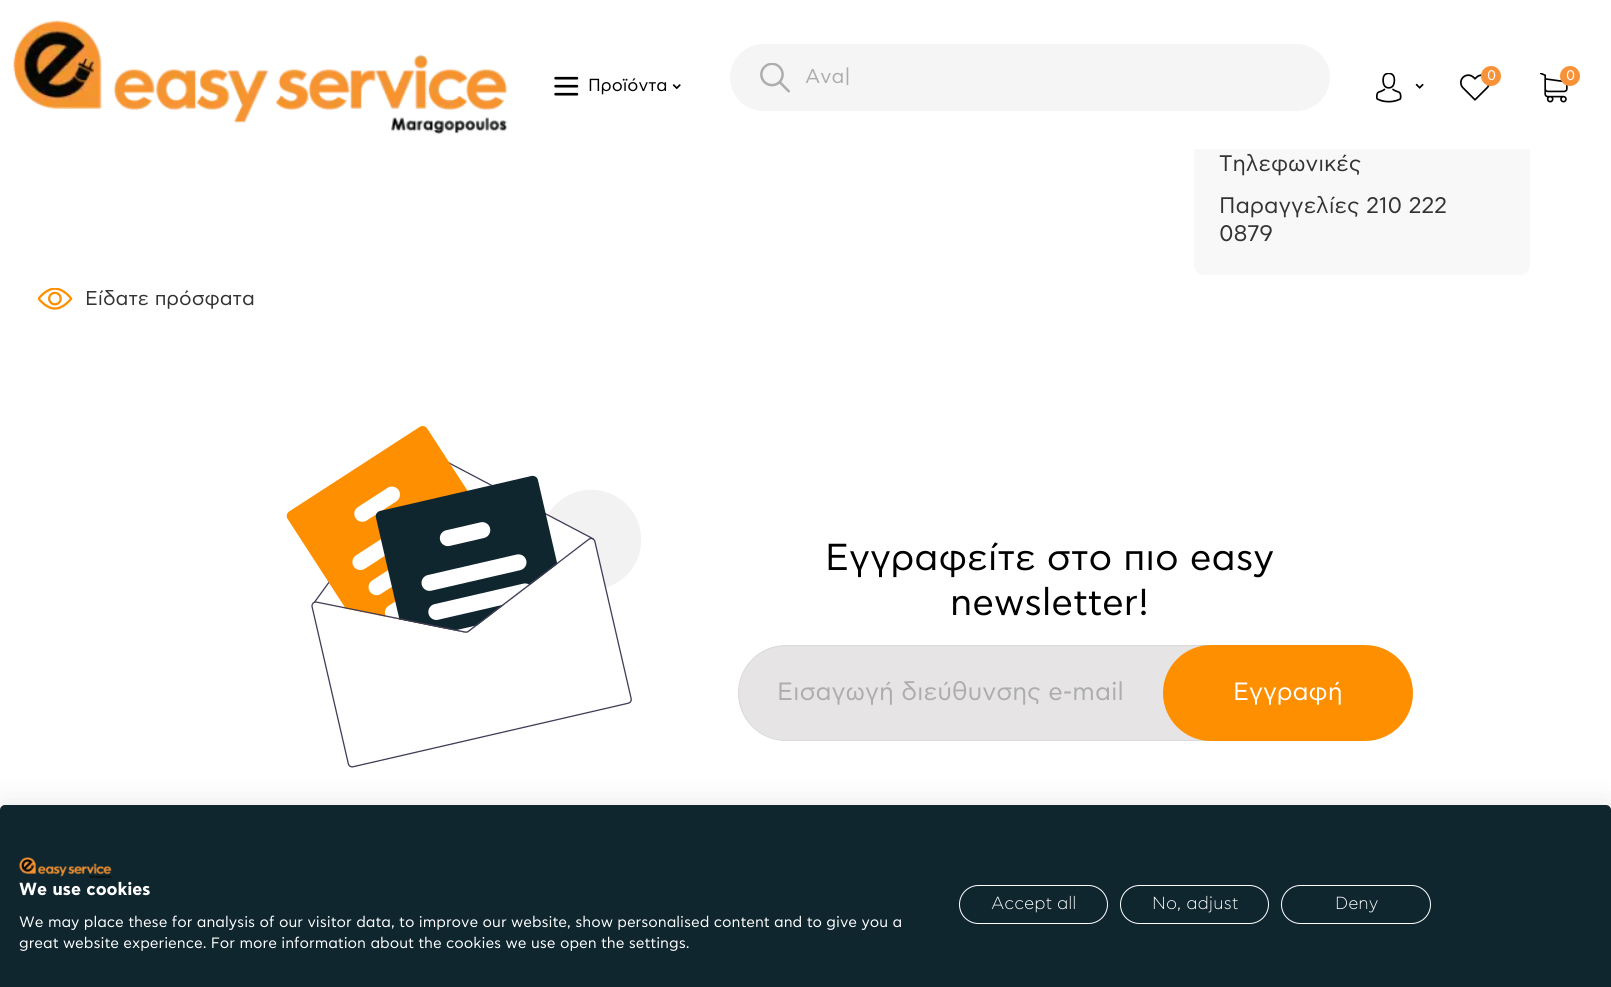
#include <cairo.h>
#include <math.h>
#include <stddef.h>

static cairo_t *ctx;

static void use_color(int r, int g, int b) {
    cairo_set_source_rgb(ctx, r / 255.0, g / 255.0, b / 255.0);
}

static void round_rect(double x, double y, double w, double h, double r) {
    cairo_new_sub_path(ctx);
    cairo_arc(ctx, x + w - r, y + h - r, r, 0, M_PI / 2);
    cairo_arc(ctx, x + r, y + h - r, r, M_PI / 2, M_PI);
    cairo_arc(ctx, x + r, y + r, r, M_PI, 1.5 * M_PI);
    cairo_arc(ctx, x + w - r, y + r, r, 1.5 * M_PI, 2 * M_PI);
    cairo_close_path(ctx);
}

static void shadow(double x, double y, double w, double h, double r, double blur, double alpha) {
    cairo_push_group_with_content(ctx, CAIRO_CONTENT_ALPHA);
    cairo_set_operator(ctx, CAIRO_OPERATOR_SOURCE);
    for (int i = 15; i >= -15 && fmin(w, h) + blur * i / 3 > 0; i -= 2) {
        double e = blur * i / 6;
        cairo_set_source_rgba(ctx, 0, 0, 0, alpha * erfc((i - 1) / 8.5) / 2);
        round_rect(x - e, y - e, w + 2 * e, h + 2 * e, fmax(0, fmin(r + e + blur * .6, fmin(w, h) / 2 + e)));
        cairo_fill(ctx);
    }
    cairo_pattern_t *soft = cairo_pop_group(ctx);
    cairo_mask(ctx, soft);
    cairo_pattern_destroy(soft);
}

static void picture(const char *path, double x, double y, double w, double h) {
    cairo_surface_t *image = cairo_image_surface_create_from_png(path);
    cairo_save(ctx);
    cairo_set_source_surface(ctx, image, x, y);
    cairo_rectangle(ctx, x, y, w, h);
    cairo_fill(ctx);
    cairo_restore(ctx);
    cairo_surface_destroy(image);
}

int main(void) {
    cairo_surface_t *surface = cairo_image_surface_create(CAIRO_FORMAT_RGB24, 1611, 987);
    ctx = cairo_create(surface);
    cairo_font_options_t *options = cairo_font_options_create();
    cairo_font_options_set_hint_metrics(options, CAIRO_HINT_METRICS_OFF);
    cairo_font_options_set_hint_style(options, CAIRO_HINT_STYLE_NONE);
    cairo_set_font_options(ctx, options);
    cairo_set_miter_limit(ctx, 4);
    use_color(255, 255, 255);
    cairo_paint(ctx);
    use_color(248, 248, 248);
    round_rect(1194, -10, 336, 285, 10);
    cairo_fill(ctx);
    use_color(255, 255, 255);
    cairo_rectangle(ctx, 1194, 0, 336, 149);
    cairo_fill(ctx);
    picture("img1.png", 13, 20, 495, 114);
    picture("img2.png", 554, 76, 25, 20);
    cairo_select_font_face(ctx, "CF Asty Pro", CAIRO_FONT_SLANT_NORMAL, CAIRO_FONT_WEIGHT_NORMAL);
    cairo_set_font_size(ctx, 17.5);
    use_color(0, 0, 0);
    cairo_move_to(ctx, 588, 91);
    cairo_show_text(ctx, "Προϊόντα");
    picture("img3.png", 672, 84, 9, 6);
    use_color(245, 245, 245);
    round_rect(730, 44, 600, 67, 33.5);
    cairo_fill(ctx);
    picture("img4.png", 760, 63, 30, 30);
    cairo_set_font_size(ctx, 20);
    use_color(173, 173, 173);
    cairo_move_to(ctx, 805, 83);
    cairo_show_text(ctx, "Ανα|");
    picture("img5.png", 1376, 73, 26, 30);
    picture("img6.png", 1415, 83, 9, 6);
    picture("img7.png", 1460, 74, 30, 27);
    use_color(247, 146, 57);
    cairo_arc(ctx, 1491, 76, 10, 0, 2 * M_PI);
    cairo_fill(ctx);
    cairo_set_font_size(ctx, 14);
    use_color(255, 255, 255);
    cairo_move_to(ctx, 1487, 80);
    cairo_show_text(ctx, "0");
    picture("img8.png", 1539, 73, 29, 30);
    use_color(247, 146, 57);
    cairo_arc(ctx, 1570, 76, 10, 0, 2 * M_PI);
    cairo_fill(ctx);
    use_color(255, 255, 255);
    cairo_move_to(ctx, 1566, 80);
    cairo_show_text(ctx, "0");
    cairo_set_font_size(ctx, 22.5);
    use_color(51, 51, 51);
    cairo_move_to(ctx, 1219, 171);
    cairo_show_text(ctx, "Τηλεφωνικές");
    cairo_move_to(ctx, 1219, 213);
    cairo_show_text(ctx, "Παραγγελίες 210 222");
    cairo_move_to(ctx, 1219, 241);
    cairo_show_text(ctx, "0879");
    picture("img9.png", 38, 288, 35, 22);
    cairo_set_font_size(ctx, 20);
    cairo_move_to(ctx, 85, 305);
    cairo_show_text(ctx, "Είδατε πρόσφατα");
    use_color(15, 38, 47);
    cairo_rectangle(ctx, 0, 983, 1611, 4);
    cairo_fill(ctx);
    picture("img10.png", 286, 426, 355, 342);
    cairo_set_font_size(ctx, 37.5);
    use_color(0, 0, 0);
    cairo_move_to(ctx, 825, 570);
    cairo_show_text(ctx, "Εγγραφείτε στο πιο easy");
    cairo_move_to(ctx, 950, 615);
    cairo_show_text(ctx, "newsletter!");
    use_color(230, 228, 228);
    round_rect(738.5, 645.5, 656, 95, 47.5);
    cairo_fill_preserve(ctx);
    use_color(217, 217, 217);
    cairo_set_line_width(ctx, 1);
    cairo_stroke(ctx);
    cairo_set_font_size(ctx, 25);
    use_color(173, 173, 173);
    cairo_move_to(ctx, 777, 700);
    cairo_show_text(ctx, "Εισαγωγή διεύθυνσης e-mail");
    use_color(254, 143, 1);
    round_rect(1163, 645, 250, 96, 48);
    cairo_fill(ctx);
    use_color(255, 255, 255);
    cairo_move_to(ctx, 1233, 700);
    cairo_show_text(ctx, "Εγγραφή");
    use_color(0, 0, 0);
    shadow(0, 805, 1611, 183, 5, 15, 0.1);
    use_color(15, 38, 47);
    round_rect(0, 805, 1611, 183, 5);
    cairo_fill(ctx);
    picture("img11.png", 19, 857, 93, 22);
    cairo_select_font_face(ctx, "CF Asty Pro", CAIRO_FONT_SLANT_NORMAL, CAIRO_FONT_WEIGHT_BOLD);
    cairo_set_font_size(ctx, 17.5);
    use_color(255, 255, 255);
    cairo_move_to(ctx, 19, 895);
    cairo_show_text(ctx, "We use cookies");
    cairo_select_font_face(ctx, "CF Asty Pro", CAIRO_FONT_SLANT_NORMAL, CAIRO_FONT_WEIGHT_NORMAL);
    cairo_set_font_size(ctx, 15);
    cairo_move_to(ctx, 19, 927);
    cairo_show_text(ctx, "We may place these for analysis of our visitor data, to improve our website, show personalised content and to give you a");
    cairo_move_to(ctx, 19, 948);
    cairo_show_text(ctx, "great website experience. For more information about the cookies we use open the settings.");
    round_rect(959.5, 885.5, 148, 38, 19);
    cairo_stroke(ctx);
    cairo_select_font_face(ctx, "CF Asty Pro Light", CAIRO_FONT_SLANT_NORMAL, CAIRO_FONT_WEIGHT_NORMAL);
    cairo_set_font_size(ctx, 17.5);
    cairo_move_to(ctx, 991, 909);
    cairo_show_text(ctx, "Accept all");
    round_rect(1120.5, 885.5, 148, 38, 19);
    cairo_stroke(ctx);
    cairo_move_to(ctx, 1152, 909);
    cairo_show_text(ctx, "No, adjust");
    round_rect(1281.5, 885.5, 149, 38, 19);
    cairo_stroke(ctx);
    cairo_move_to(ctx, 1335, 909);
    cairo_show_text(ctx, "Deny");
    cairo_surface_write_to_png(surface, "result.png");
    cairo_font_options_destroy(options);
    cairo_destroy(ctx);
    cairo_surface_destroy(surface);
    return 0;
}
